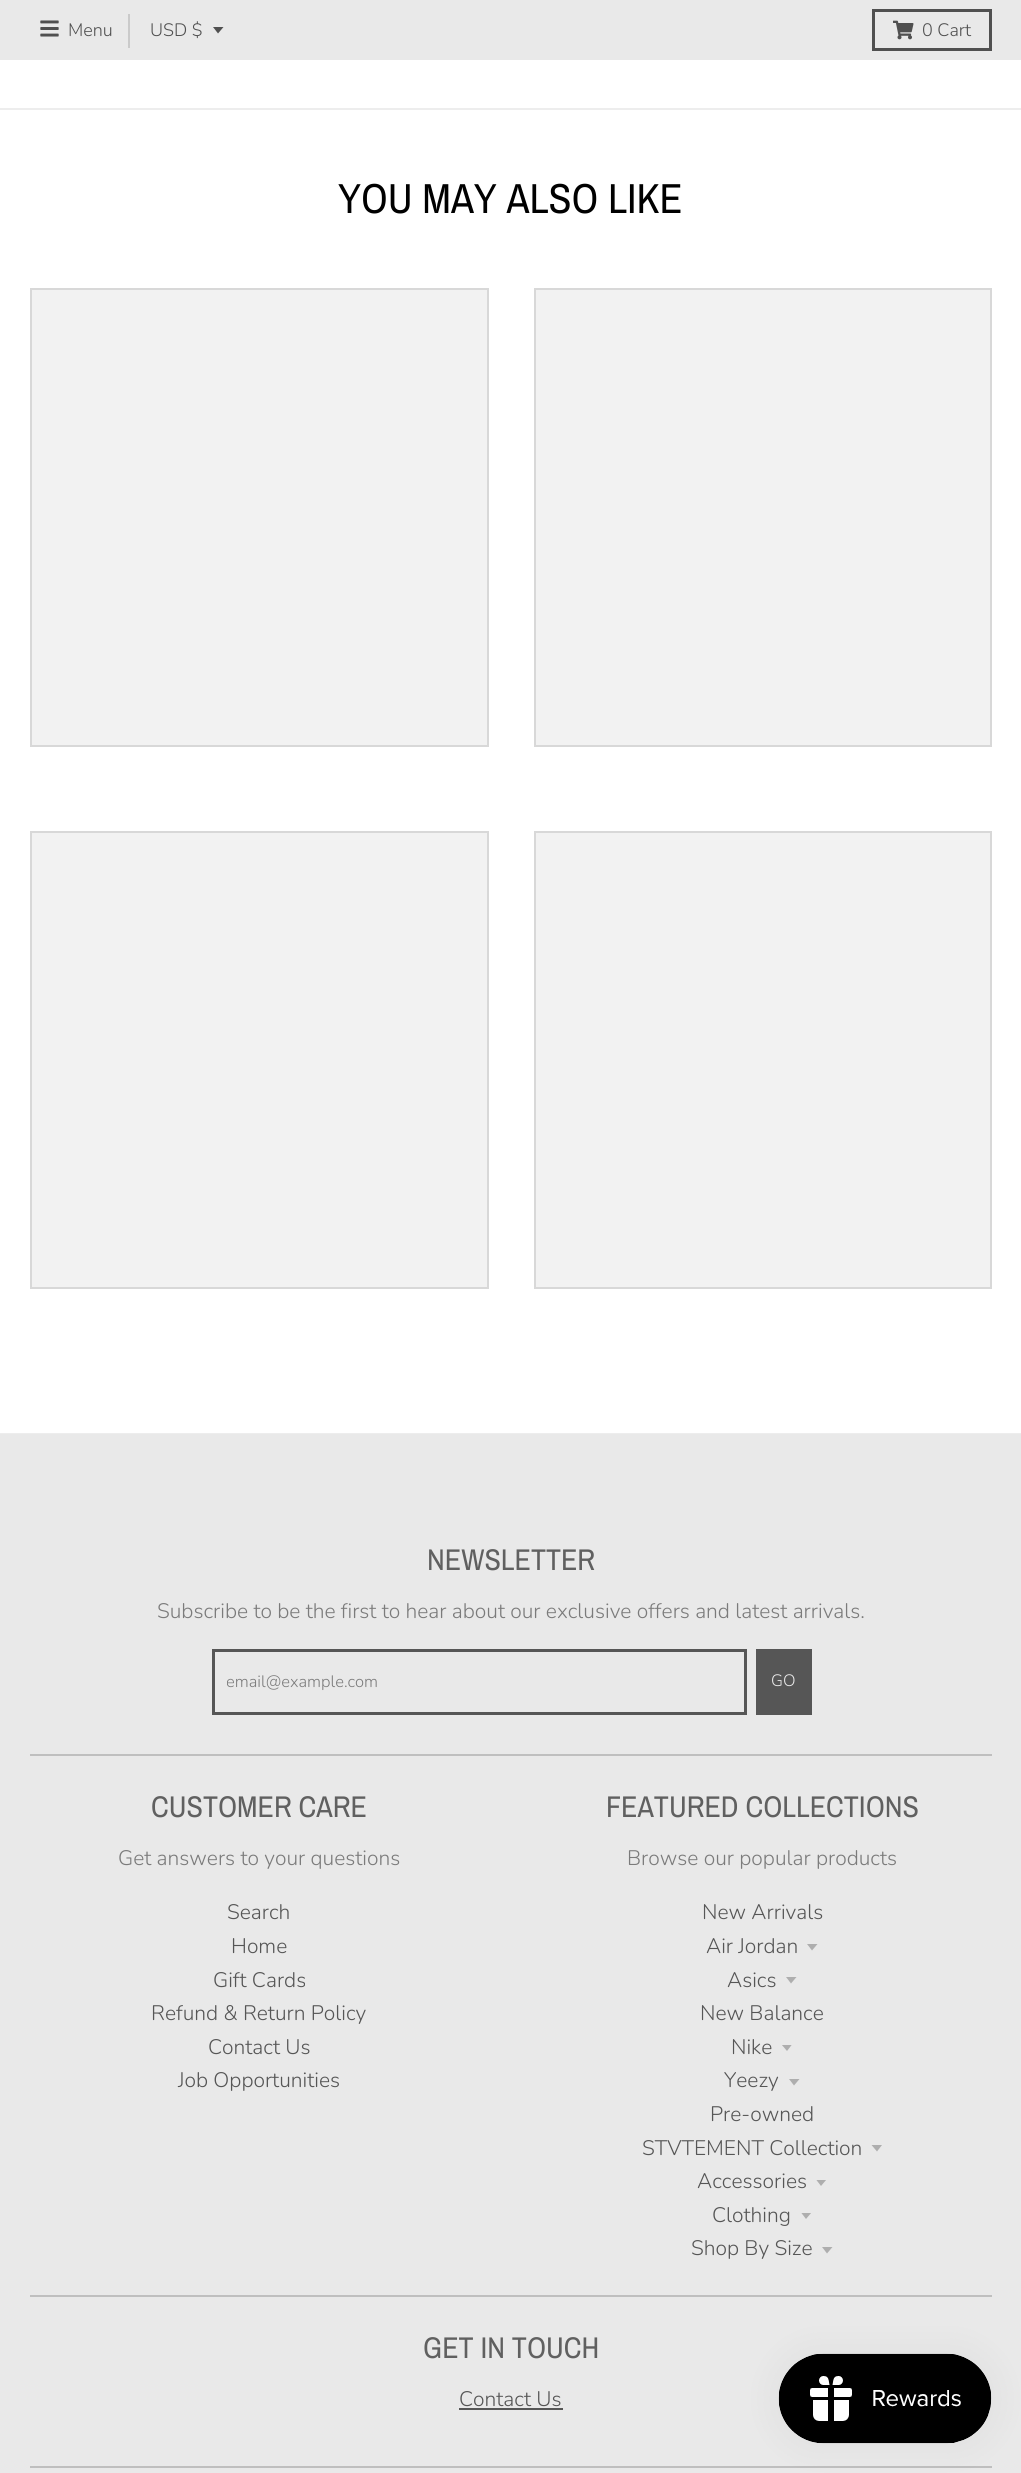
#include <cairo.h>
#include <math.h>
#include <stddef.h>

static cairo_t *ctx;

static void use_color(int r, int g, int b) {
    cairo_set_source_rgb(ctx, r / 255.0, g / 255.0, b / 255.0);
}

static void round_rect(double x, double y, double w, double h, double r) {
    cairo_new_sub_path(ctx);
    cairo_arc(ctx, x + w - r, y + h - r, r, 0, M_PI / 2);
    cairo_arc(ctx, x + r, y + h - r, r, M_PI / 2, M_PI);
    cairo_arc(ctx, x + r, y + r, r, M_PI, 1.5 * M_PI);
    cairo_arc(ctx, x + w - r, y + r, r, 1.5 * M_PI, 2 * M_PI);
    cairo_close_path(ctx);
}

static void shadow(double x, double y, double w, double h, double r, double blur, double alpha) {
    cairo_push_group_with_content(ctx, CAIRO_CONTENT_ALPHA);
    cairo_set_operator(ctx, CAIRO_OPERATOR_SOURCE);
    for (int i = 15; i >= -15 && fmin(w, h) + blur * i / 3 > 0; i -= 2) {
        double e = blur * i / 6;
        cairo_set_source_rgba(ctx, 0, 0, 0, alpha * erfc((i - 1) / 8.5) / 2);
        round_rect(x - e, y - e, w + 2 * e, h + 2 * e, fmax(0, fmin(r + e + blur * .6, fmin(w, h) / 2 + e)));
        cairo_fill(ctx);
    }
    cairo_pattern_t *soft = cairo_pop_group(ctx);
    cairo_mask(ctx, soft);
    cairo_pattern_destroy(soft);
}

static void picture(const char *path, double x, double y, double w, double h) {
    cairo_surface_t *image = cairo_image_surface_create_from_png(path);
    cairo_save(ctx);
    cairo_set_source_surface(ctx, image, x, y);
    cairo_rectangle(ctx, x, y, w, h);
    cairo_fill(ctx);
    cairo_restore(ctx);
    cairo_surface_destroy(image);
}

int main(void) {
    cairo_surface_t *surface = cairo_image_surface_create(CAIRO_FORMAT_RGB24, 1021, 2473);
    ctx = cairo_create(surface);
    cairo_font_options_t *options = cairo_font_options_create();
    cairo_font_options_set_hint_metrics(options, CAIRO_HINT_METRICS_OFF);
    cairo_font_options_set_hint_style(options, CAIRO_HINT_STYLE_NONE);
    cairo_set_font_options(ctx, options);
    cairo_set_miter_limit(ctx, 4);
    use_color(255, 255, 255);
    cairo_paint(ctx);
    use_color(233, 233, 233);
    cairo_rectangle(ctx, 0, 0, 1021, 60);
    cairo_fill(ctx);
    picture("img1.png", 40, 20, 19, 17);
    cairo_select_font_face(ctx, "Nunito Light", CAIRO_FONT_SLANT_NORMAL, CAIRO_FONT_WEIGHT_NORMAL);
    cairo_set_font_size(ctx, 18);
    use_color(80, 80, 80);
    cairo_move_to(ctx, 68, 36);
    cairo_show_text(ctx, "Menu");
    use_color(202, 202, 202);
    cairo_rectangle(ctx, 128, 14, 2, 34);
    cairo_fill(ctx);
    use_color(80, 80, 80);
    cairo_new_path(ctx);
    cairo_move_to(ctx, 213, 27);
    cairo_line_to(ctx, 218, 33.5);
    cairo_line_to(ctx, 223.5, 27);
    cairo_close_path(ctx);
    cairo_fill(ctx);
    cairo_move_to(ctx, 150, 36);
    cairo_show_text(ctx, "USD $");
    cairo_rectangle(ctx, 873.5, 10.5, 117, 39);
    cairo_set_line_width(ctx, 3);
    cairo_stroke(ctx);
    picture("img2.png", 893, 20, 21, 20);
    cairo_move_to(ctx, 922, 36);
    cairo_show_text(ctx, "0 Cart");
    use_color(237, 237, 237);
    cairo_rectangle(ctx, 0, 108, 1021, 2);
    cairo_fill(ctx);
    cairo_rectangle(ctx, 0, 1433, 1021, 1);
    cairo_fill(ctx);
    cairo_select_font_face(ctx, "Archivo Narrow", CAIRO_FONT_SLANT_NORMAL, CAIRO_FONT_WEIGHT_NORMAL);
    cairo_set_font_size(ctx, 42);
    use_color(0, 0, 0);
    cairo_move_to(ctx, 338, 213);
    cairo_show_text(ctx, "YOU MAY ALSO LIKE");
    use_color(242, 242, 242);
    cairo_rectangle(ctx, 31, 289, 457, 457);
    cairo_fill_preserve(ctx);
    use_color(216, 216, 216);
    cairo_set_line_width(ctx, 2);
    cairo_stroke(ctx);
    use_color(242, 242, 242);
    cairo_rectangle(ctx, 535, 289, 456, 457);
    cairo_fill_preserve(ctx);
    use_color(216, 216, 216);
    cairo_stroke(ctx);
    use_color(242, 242, 242);
    cairo_rectangle(ctx, 31, 832, 457, 456);
    cairo_fill_preserve(ctx);
    use_color(216, 216, 216);
    cairo_stroke(ctx);
    use_color(242, 242, 242);
    cairo_rectangle(ctx, 535, 832, 456, 456);
    cairo_fill_preserve(ctx);
    use_color(216, 216, 216);
    cairo_stroke(ctx);
    use_color(233, 233, 233);
    cairo_rectangle(ctx, 0, 1434, 1021, 1039);
    cairo_fill(ctx);
    cairo_set_font_size(ctx, 30);
    use_color(96, 96, 96);
    cairo_move_to(ctx, 427, 1570);
    cairo_show_text(ctx, "NEWSLETTER");
    cairo_select_font_face(ctx, "Nunito Light", CAIRO_FONT_SLANT_NORMAL, CAIRO_FONT_WEIGHT_NORMAL);
    cairo_set_font_size(ctx, 21);
    use_color(123, 123, 123);
    cairo_move_to(ctx, 157, 1618);
    cairo_show_text(ctx, "Subscribe to be the first to hear about our exclusive offers and latest arrivals.");
    use_color(191, 191, 191);
    cairo_rectangle(ctx, 30, 1754, 962, 2);
    cairo_fill(ctx);
    cairo_rectangle(ctx, 213.5, 1650.5, 532, 63);
    use_color(86, 86, 86);
    cairo_set_line_width(ctx, 3);
    cairo_stroke(ctx);
    cairo_save(ctx);
    cairo_rectangle(ctx, 227, 1671, 505, 23);
    cairo_clip(ctx);
    cairo_set_font_size(ctx, 16.5);
    use_color(123, 123, 123);
    cairo_move_to(ctx, 226, 1687);
    cairo_show_text(ctx, "email@example.com");
    cairo_restore(ctx);
    cairo_rectangle(ctx, 756, 1649, 56, 66);
    cairo_fill(ctx);
    cairo_set_font_size(ctx, 16.5);
    use_color(233, 233, 233);
    cairo_move_to(ctx, 771, 1686);
    cairo_show_text(ctx, "GO");
    cairo_select_font_face(ctx, "Archivo Narrow", CAIRO_FONT_SLANT_NORMAL, CAIRO_FONT_WEIGHT_NORMAL);
    cairo_set_font_size(ctx, 30);
    use_color(96, 96, 96);
    cairo_move_to(ctx, 151, 1817);
    cairo_show_text(ctx, "CUSTOMER CARE");
    cairo_select_font_face(ctx, "Nunito Light", CAIRO_FONT_SLANT_NORMAL, CAIRO_FONT_WEIGHT_NORMAL);
    cairo_set_font_size(ctx, 21);
    use_color(123, 123, 123);
    cairo_move_to(ctx, 118, 1865);
    cairo_show_text(ctx, "Get answers to your questions");
    use_color(86, 86, 86);
    cairo_move_to(ctx, 227, 1919);
    cairo_show_text(ctx, "Search");
    cairo_move_to(ctx, 231, 1953);
    cairo_show_text(ctx, "Home");
    cairo_move_to(ctx, 213, 1987);
    cairo_show_text(ctx, "Gift Cards");
    cairo_move_to(ctx, 151, 2020);
    cairo_show_text(ctx, "Refund & Return Policy");
    cairo_move_to(ctx, 208, 2054);
    cairo_show_text(ctx, "Contact Us");
    cairo_move_to(ctx, 178, 2087);
    cairo_show_text(ctx, "Job Opportunities");
    cairo_select_font_face(ctx, "Archivo Narrow", CAIRO_FONT_SLANT_NORMAL, CAIRO_FONT_WEIGHT_NORMAL);
    cairo_set_font_size(ctx, 30);
    use_color(96, 96, 96);
    cairo_move_to(ctx, 606, 1817);
    cairo_show_text(ctx, "FEATURED COLLECTIONS");
    cairo_select_font_face(ctx, "Nunito Light", CAIRO_FONT_SLANT_NORMAL, CAIRO_FONT_WEIGHT_NORMAL);
    cairo_set_font_size(ctx, 21);
    use_color(123, 123, 123);
    cairo_move_to(ctx, 627, 1865);
    cairo_show_text(ctx, "Browse our popular products");
    use_color(86, 86, 86);
    cairo_move_to(ctx, 702, 1919);
    cairo_show_text(ctx, "New Arrivals");
    cairo_move_to(ctx, 706, 1953);
    cairo_show_text(ctx, "Air Jordan");
    use_color(174, 174, 174);
    cairo_new_path(ctx);
    cairo_move_to(ctx, 807, 1944);
    cairo_line_to(ctx, 812, 1950.5);
    cairo_line_to(ctx, 817.5, 1944);
    cairo_close_path(ctx);
    cairo_fill(ctx);
    use_color(86, 86, 86);
    cairo_move_to(ctx, 727, 1987);
    cairo_show_text(ctx, "Asics");
    use_color(174, 174, 174);
    cairo_new_path(ctx);
    cairo_move_to(ctx, 786, 1977);
    cairo_line_to(ctx, 791, 1983.5);
    cairo_line_to(ctx, 796.5, 1977);
    cairo_close_path(ctx);
    cairo_fill(ctx);
    use_color(86, 86, 86);
    cairo_move_to(ctx, 700, 2020);
    cairo_show_text(ctx, "New Balance");
    cairo_move_to(ctx, 731, 2054);
    cairo_show_text(ctx, "Nike");
    cairo_save(ctx);
    cairo_rectangle(ctx, 782, 2045, 12, 7);
    cairo_clip(ctx);
    use_color(174, 174, 174);
    cairo_new_path(ctx);
    cairo_move_to(ctx, 781.5, 2044.5);
    cairo_line_to(ctx, 787, 2051);
    cairo_line_to(ctx, 792, 2044.5);
    cairo_close_path(ctx);
    cairo_fill(ctx);
    cairo_restore(ctx);
    cairo_move_to(ctx, 724, 2087);
    cairo_show_text(ctx, "Yeezy");
    use_color(174, 174, 174);
    cairo_new_path(ctx);
    cairo_move_to(ctx, 789, 2079);
    cairo_line_to(ctx, 794, 2085.5);
    cairo_line_to(ctx, 799.5, 2079);
    cairo_close_path(ctx);
    cairo_fill(ctx);
    use_color(86, 86, 86);
    cairo_move_to(ctx, 710, 2121);
    cairo_show_text(ctx, "Pre-owned");
    cairo_move_to(ctx, 642, 2155);
    cairo_show_text(ctx, "STVTEMENT Collection");
    use_color(174, 174, 174);
    cairo_new_path(ctx);
    cairo_move_to(ctx, 871.5, 2145);
    cairo_line_to(ctx, 877, 2151.5);
    cairo_line_to(ctx, 882, 2145);
    cairo_close_path(ctx);
    cairo_fill(ctx);
    use_color(86, 86, 86);
    cairo_move_to(ctx, 697, 2188);
    cairo_show_text(ctx, "Accessories");
    cairo_save(ctx);
    cairo_rectangle(ctx, 816, 2180, 12, 7);
    cairo_clip(ctx);
    use_color(174, 174, 174);
    cairo_new_path(ctx);
    cairo_move_to(ctx, 816, 2179.5);
    cairo_line_to(ctx, 821, 2186);
    cairo_line_to(ctx, 826.5, 2179.5);
    cairo_close_path(ctx);
    cairo_fill(ctx);
    cairo_restore(ctx);
    cairo_move_to(ctx, 712, 2222);
    cairo_show_text(ctx, "Clothing");
    cairo_save(ctx);
    cairo_rectangle(ctx, 801, 2213, 12, 7);
    cairo_clip(ctx);
    use_color(174, 174, 174);
    cairo_new_path(ctx);
    cairo_move_to(ctx, 801, 2212.5);
    cairo_line_to(ctx, 806, 2219);
    cairo_line_to(ctx, 811.5, 2212.5);
    cairo_close_path(ctx);
    cairo_fill(ctx);
    cairo_restore(ctx);
    cairo_move_to(ctx, 691, 2255);
    cairo_show_text(ctx, "Shop By Size");
    use_color(174, 174, 174);
    cairo_new_path(ctx);
    cairo_move_to(ctx, 822, 2247);
    cairo_line_to(ctx, 827, 2253.5);
    cairo_line_to(ctx, 832.5, 2247);
    cairo_close_path(ctx);
    cairo_fill(ctx);
    use_color(191, 191, 191);
    cairo_rectangle(ctx, 30, 2295, 962, 2);
    cairo_fill(ctx);
    cairo_select_font_face(ctx, "Archivo Narrow", CAIRO_FONT_SLANT_NORMAL, CAIRO_FONT_WEIGHT_NORMAL);
    cairo_set_font_size(ctx, 30);
    use_color(96, 96, 96);
    cairo_move_to(ctx, 423, 2358);
    cairo_show_text(ctx, "GET IN TOUCH");
    cairo_select_font_face(ctx, "Nunito Light", CAIRO_FONT_SLANT_NORMAL, CAIRO_FONT_WEIGHT_NORMAL);
    cairo_set_font_size(ctx, 21);
    use_color(86, 86, 86);
    cairo_move_to(ctx, 459, 2406);
    cairo_show_text(ctx, "Contact Us");
    cairo_rectangle(ctx, 459, 2408, 104, 2);
    cairo_fill(ctx);
    use_color(191, 191, 191);
    cairo_rectangle(ctx, 30, 2466, 962, 2);
    cairo_fill(ctx);
    use_color(0, 0, 0);
    shadow(779, 2354, 213, 90, 45, 19, 0.05);
    picture("img3.png", 778, 2353, 214, 91);
    cairo_surface_write_to_png(surface, "result.png");
    cairo_font_options_destroy(options);
    cairo_destroy(ctx);
    cairo_surface_destroy(surface);
    return 0;
}
